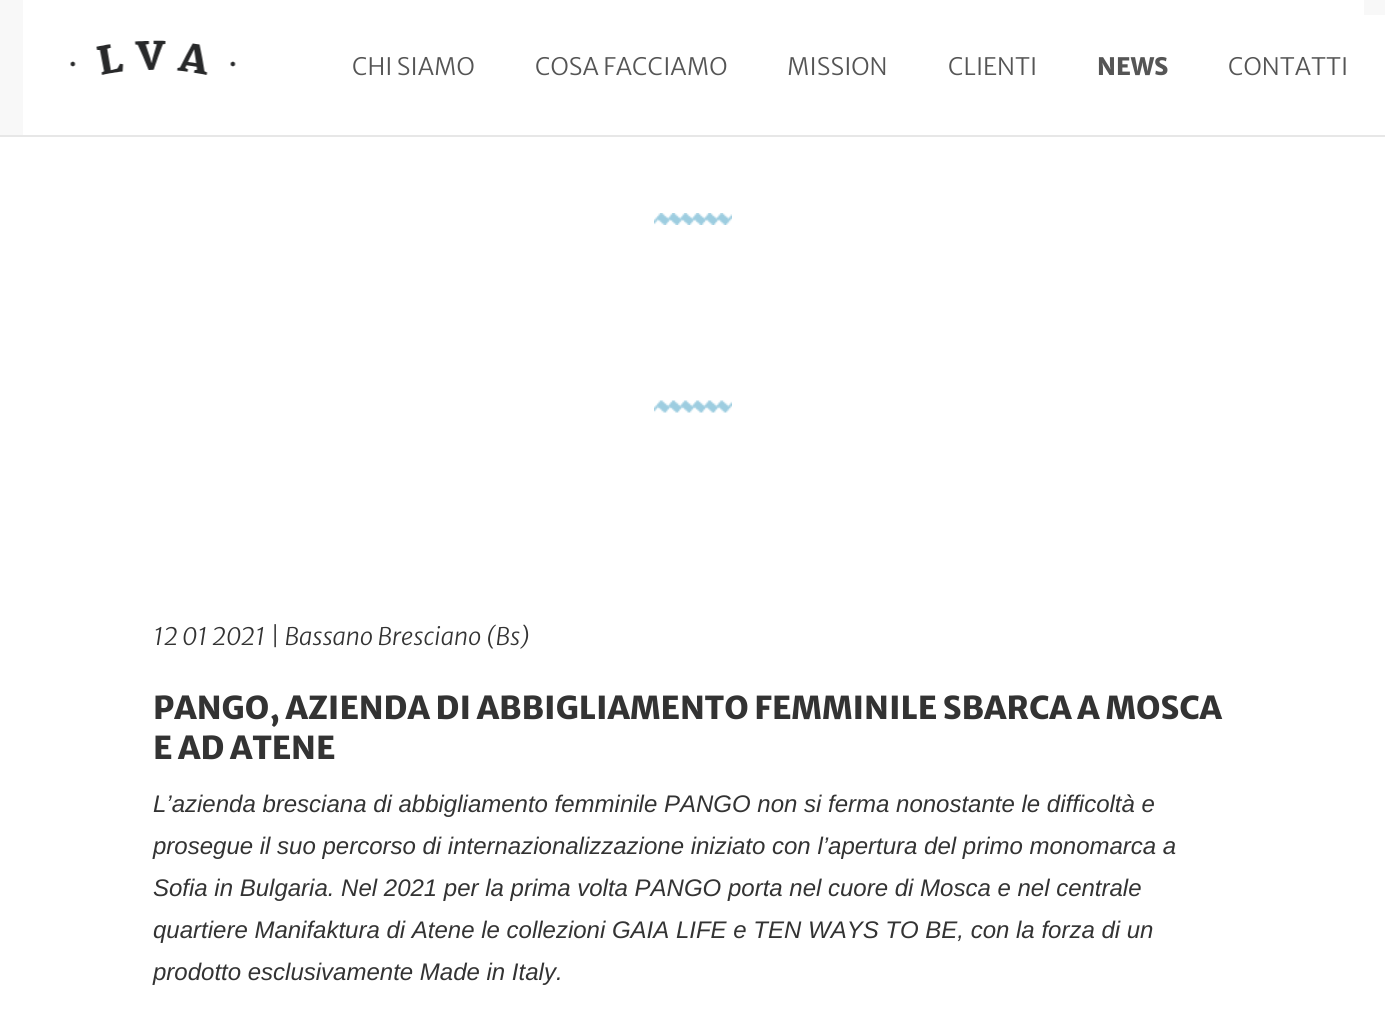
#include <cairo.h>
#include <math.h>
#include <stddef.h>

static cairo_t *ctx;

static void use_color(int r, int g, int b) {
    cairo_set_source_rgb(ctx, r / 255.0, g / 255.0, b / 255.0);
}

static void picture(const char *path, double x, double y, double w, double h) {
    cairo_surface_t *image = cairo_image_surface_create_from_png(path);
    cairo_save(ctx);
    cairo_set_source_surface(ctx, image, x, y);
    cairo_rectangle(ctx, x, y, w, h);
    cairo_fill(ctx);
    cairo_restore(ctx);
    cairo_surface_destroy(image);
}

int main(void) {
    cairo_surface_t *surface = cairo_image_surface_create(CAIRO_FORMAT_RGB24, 1385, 1022);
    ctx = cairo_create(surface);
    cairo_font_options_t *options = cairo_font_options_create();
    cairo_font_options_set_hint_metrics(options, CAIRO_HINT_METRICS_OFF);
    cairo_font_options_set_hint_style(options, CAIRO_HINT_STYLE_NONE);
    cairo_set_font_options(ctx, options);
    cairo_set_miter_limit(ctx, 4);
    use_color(255, 255, 255);
    cairo_paint(ctx);
    use_color(248, 248, 248);
    cairo_rectangle(ctx, 0, 0, 1385, 135);
    cairo_fill(ctx);
    use_color(231, 231, 231);
    cairo_rectangle(ctx, 0, 135, 1385, 2);
    cairo_fill(ctx);
    use_color(255, 255, 255);
    cairo_rectangle(ctx, 23, 0, 1341, 135);
    cairo_fill(ctx);
    picture("img1.png", 70, 40, 166, 35);
    cairo_rectangle(ctx, 1364, 15, 21, 120);
    cairo_fill(ctx);
    cairo_select_font_face(ctx, "Merriweather Sans Light", CAIRO_FONT_SLANT_NORMAL, CAIRO_FONT_WEIGHT_NORMAL);
    cairo_set_font_size(ctx, 24);
    use_color(85, 85, 85);
    cairo_move_to(ctx, 352, 75);
    cairo_show_text(ctx, "CHI SIAMO");
    cairo_move_to(ctx, 535, 75);
    cairo_show_text(ctx, "COSA FACCIAMO");
    cairo_move_to(ctx, 787, 75);
    cairo_show_text(ctx, "MISSION");
    cairo_move_to(ctx, 948, 75);
    cairo_show_text(ctx, "CLIENTI");
    cairo_select_font_face(ctx, "Merriweather Sans ExtraBold", CAIRO_FONT_SLANT_NORMAL, CAIRO_FONT_WEIGHT_NORMAL);
    cairo_move_to(ctx, 1097, 75);
    cairo_show_text(ctx, "NEWS");
    cairo_select_font_face(ctx, "Merriweather Sans Light", CAIRO_FONT_SLANT_NORMAL, CAIRO_FONT_WEIGHT_NORMAL);
    cairo_move_to(ctx, 1228, 75);
    cairo_show_text(ctx, "CONTATTI");
    picture("img2.png", 654, 213, 78, 12);
    picture("img3.png", 654, 400, 78, 13);
    cairo_select_font_face(ctx, "Merriweather Sans Light", CAIRO_FONT_SLANT_ITALIC, CAIRO_FONT_WEIGHT_NORMAL);
    use_color(51, 51, 51);
    cairo_move_to(ctx, 153, 645);
    cairo_show_text(ctx, "12 01 2021 | Bassano Bresciano (Bs)");
    cairo_select_font_face(ctx, "Merriweather Sans ExtraBold", CAIRO_FONT_SLANT_NORMAL, CAIRO_FONT_WEIGHT_NORMAL);
    cairo_set_font_size(ctx, 31.5);
    cairo_move_to(ctx, 153, 719);
    cairo_show_text(ctx, "PANGO, AZIENDA DI ABBIGLIAMENTO FEMMINILE SBARCA A MOSCA");
    cairo_move_to(ctx, 153, 759);
    cairo_show_text(ctx, "E AD ATENE");
    cairo_select_font_face(ctx, "Liberation Sans", CAIRO_FONT_SLANT_ITALIC, CAIRO_FONT_WEIGHT_NORMAL);
    cairo_set_font_size(ctx, 24);
    cairo_move_to(ctx, 153, 812);
    cairo_show_text(ctx, "L’azienda bresciana di abbigliamento femminile PANGO non si ferma nonostante le difficoltà e");
    cairo_move_to(ctx, 153, 854);
    cairo_show_text(ctx, "prosegue il suo percorso di internazionalizzazione iniziato con l’apertura del primo monomarca a");
    cairo_move_to(ctx, 153, 896);
    cairo_show_text(ctx, "Sofia in Bulgaria. Nel 2021 per la prima volta PANGO porta nel cuore di Mosca e nel centrale");
    cairo_move_to(ctx, 153, 938);
    cairo_show_text(ctx, "quartiere Manifaktura di Atene le collezioni GAIA LIFE e TEN WAYS TO BE, con la forza di un");
    cairo_move_to(ctx, 153, 980);
    cairo_show_text(ctx, "prodotto esclusivamente Made in Italy.");
    cairo_surface_write_to_png(surface, "result.png");
    cairo_font_options_destroy(options);
    cairo_destroy(ctx);
    cairo_surface_destroy(surface);
    return 0;
}
